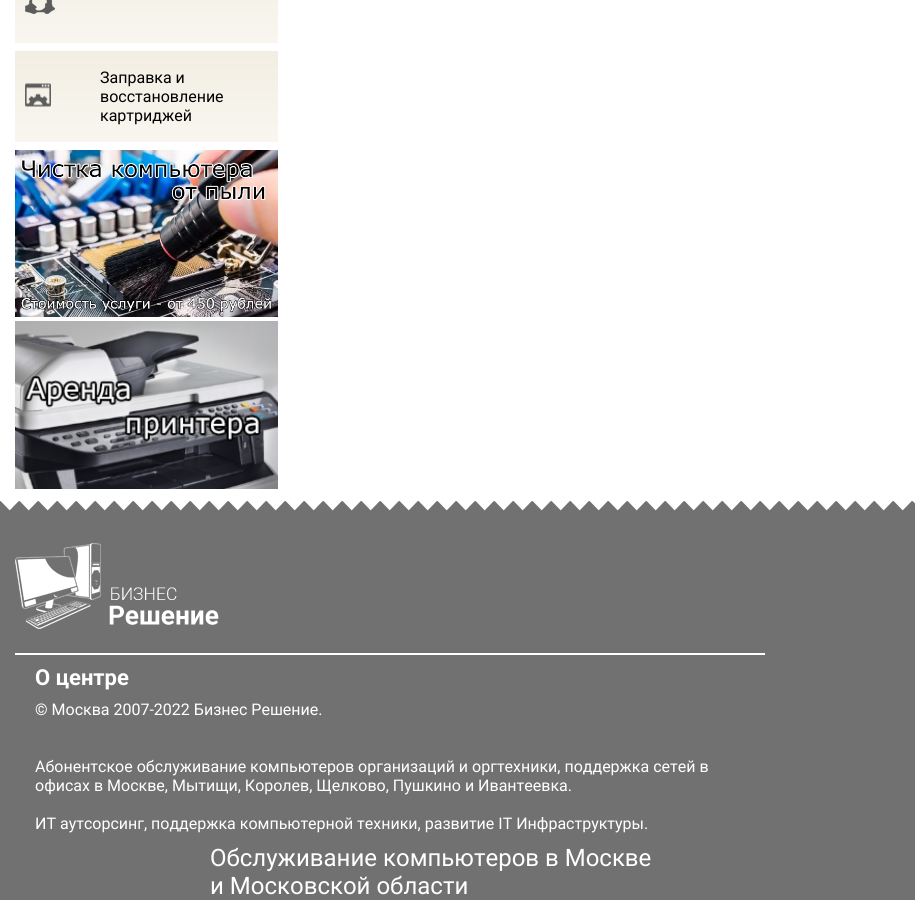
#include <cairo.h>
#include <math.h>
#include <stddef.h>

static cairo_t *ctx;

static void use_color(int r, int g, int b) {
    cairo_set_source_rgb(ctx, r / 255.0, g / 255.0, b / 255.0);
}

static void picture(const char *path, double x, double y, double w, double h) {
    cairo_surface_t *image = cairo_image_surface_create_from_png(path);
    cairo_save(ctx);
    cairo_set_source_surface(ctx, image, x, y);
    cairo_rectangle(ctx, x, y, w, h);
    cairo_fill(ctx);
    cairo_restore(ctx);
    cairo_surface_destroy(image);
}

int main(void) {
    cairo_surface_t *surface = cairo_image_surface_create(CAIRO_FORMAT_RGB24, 915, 900);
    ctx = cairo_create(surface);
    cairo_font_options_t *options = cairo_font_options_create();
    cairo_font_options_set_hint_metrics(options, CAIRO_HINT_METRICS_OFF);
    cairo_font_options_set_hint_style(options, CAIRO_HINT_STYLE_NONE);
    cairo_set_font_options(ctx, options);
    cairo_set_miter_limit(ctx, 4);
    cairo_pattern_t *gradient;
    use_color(255, 255, 255);
    cairo_paint(ctx);
    gradient = cairo_pattern_create_linear(147, -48, 147, 43);
    cairo_pattern_add_color_stop_rgba(gradient, 0, 0.949, 0.933, 0.89, 1);
    cairo_pattern_add_color_stop_rgba(gradient, 1, 0.973, 0.965, 0.937, 1);
    cairo_set_source(ctx, gradient);
    cairo_pattern_destroy(gradient);
    cairo_rectangle(ctx, 15, 0, 263, 43);
    cairo_fill(ctx);
    picture("img1.png", 25, 0, 30, 14);
    gradient = cairo_pattern_create_linear(147, 51, 147, 142);
    cairo_pattern_add_color_stop_rgba(gradient, 0, 0.949, 0.933, 0.89, 1);
    cairo_pattern_add_color_stop_rgba(gradient, 1, 0.973, 0.965, 0.937, 1);
    cairo_set_source(ctx, gradient);
    cairo_pattern_destroy(gradient);
    cairo_rectangle(ctx, 15, 51, 263, 91);
    cairo_fill(ctx);
    picture("img2.png", 25, 83, 26, 24);
    cairo_select_font_face(ctx, "Roboto", CAIRO_FONT_SLANT_NORMAL, CAIRO_FONT_WEIGHT_NORMAL);
    cairo_set_font_size(ctx, 16);
    use_color(0, 0, 0);
    cairo_move_to(ctx, 100, 83);
    cairo_show_text(ctx, "Заправка и");
    cairo_move_to(ctx, 100, 102);
    cairo_show_text(ctx, "восстановление");
    cairo_move_to(ctx, 100, 121);
    cairo_show_text(ctx, "картриджей");
    picture("img3.png", 15, 150, 263, 167);
    picture("img4.png", 15, 321, 263, 168);
    use_color(113, 113, 113);
    cairo_rectangle(ctx, 0, 513, 915, 387);
    cairo_fill(ctx);
    picture("img5.png", 0, 501, 915, 12);
    use_color(255, 255, 255);
    cairo_rectangle(ctx, 15, 653, 750, 2);
    cairo_fill(ctx);
    picture("img6.png", 15, 543, 204, 86);
    cairo_select_font_face(ctx, "Roboto", CAIRO_FONT_SLANT_NORMAL, CAIRO_FONT_WEIGHT_BOLD);
    cairo_set_font_size(ctx, 22);
    cairo_move_to(ctx, 35, 685);
    cairo_show_text(ctx, "О центре");
    cairo_select_font_face(ctx, "Roboto", CAIRO_FONT_SLANT_NORMAL, CAIRO_FONT_WEIGHT_NORMAL);
    cairo_set_font_size(ctx, 16);
    cairo_move_to(ctx, 35, 715);
    cairo_show_text(ctx, "© Москва 2007-2022 Бизнес Решение.");
    cairo_move_to(ctx, 35, 772);
    cairo_show_text(ctx, "Абонентское обслуживание компьютеров организаций и оргтехники, поддержка сетей в");
    cairo_move_to(ctx, 35, 791);
    cairo_show_text(ctx, "офисах в Москве, Мытищи, Королев, Щелково, Пушкино и Ивантеевка.");
    cairo_move_to(ctx, 35, 829);
    cairo_show_text(ctx, "ИТ аутсорсинг, поддержка компьютерной техники, развитие IT Инфраструктуры.");
    cairo_set_font_size(ctx, 24);
    cairo_move_to(ctx, 210, 866);
    cairo_show_text(ctx, "Обслуживание компьютеров в Москве");
    cairo_move_to(ctx, 210, 894);
    cairo_show_text(ctx, "и Московской области");
    cairo_surface_write_to_png(surface, "result.png");
    cairo_font_options_destroy(options);
    cairo_destroy(ctx);
    cairo_surface_destroy(surface);
    return 0;
}
